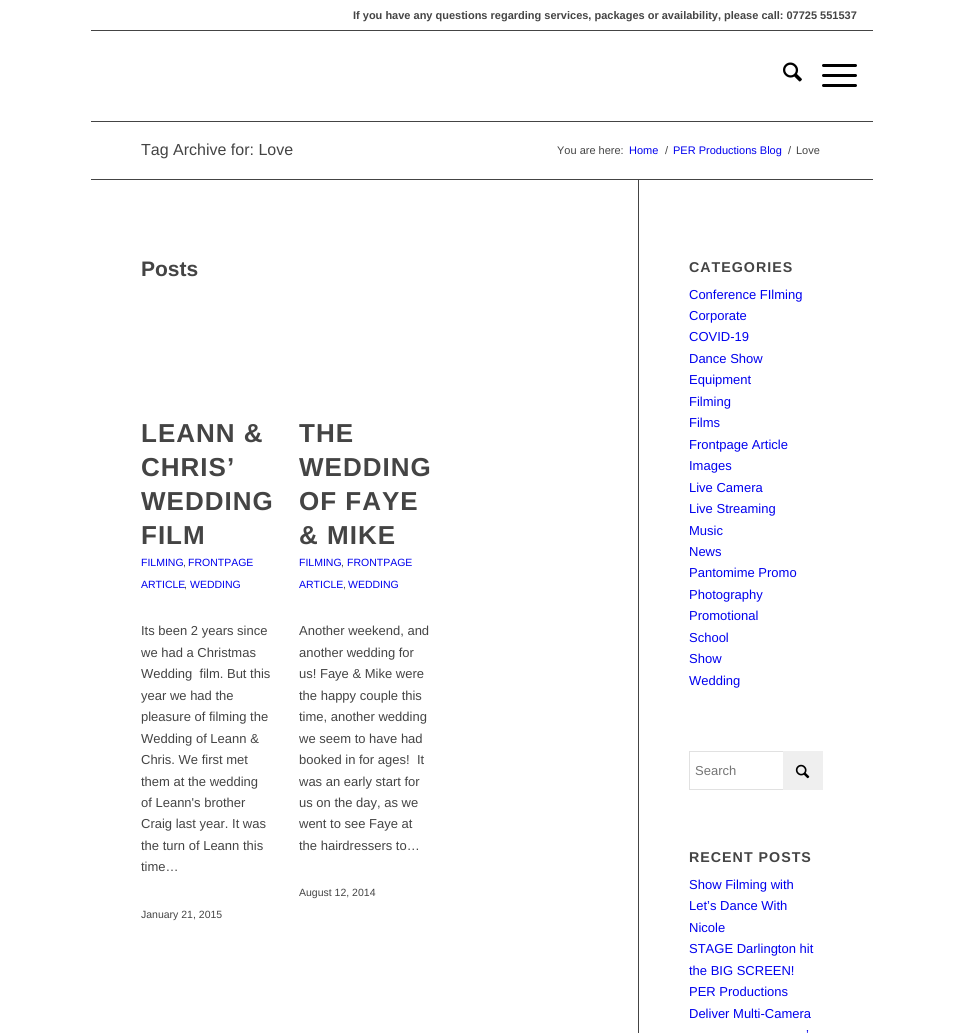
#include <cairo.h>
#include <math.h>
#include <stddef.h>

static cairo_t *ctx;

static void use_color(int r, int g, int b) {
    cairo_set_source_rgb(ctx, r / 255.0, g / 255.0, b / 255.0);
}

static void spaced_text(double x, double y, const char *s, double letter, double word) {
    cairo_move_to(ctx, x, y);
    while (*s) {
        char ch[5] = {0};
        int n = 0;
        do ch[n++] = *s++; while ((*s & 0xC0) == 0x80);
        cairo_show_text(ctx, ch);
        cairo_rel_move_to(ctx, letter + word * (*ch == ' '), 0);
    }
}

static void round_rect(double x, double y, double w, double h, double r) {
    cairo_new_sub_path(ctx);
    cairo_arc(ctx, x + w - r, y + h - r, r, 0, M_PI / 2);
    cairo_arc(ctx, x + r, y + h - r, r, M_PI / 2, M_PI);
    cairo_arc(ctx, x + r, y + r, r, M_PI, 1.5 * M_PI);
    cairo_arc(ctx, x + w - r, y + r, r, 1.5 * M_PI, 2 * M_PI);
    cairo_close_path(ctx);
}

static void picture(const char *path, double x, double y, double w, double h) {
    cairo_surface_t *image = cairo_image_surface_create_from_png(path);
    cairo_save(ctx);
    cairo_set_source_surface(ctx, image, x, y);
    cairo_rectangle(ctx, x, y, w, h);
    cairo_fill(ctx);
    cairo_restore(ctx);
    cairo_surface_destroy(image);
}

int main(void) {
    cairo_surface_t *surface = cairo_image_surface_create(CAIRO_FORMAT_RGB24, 963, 1033);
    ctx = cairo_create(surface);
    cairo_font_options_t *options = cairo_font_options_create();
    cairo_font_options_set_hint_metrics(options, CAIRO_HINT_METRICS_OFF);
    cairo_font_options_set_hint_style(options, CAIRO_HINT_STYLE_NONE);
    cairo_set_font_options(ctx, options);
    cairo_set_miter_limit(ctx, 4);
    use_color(255, 255, 255);
    cairo_paint(ctx);
    cairo_select_font_face(ctx, "Liberation Sans", CAIRO_FONT_SLANT_NORMAL, CAIRO_FONT_WEIGHT_BOLD);
    cairo_set_font_size(ctx, 11);
    use_color(68, 68, 68);
    cairo_move_to(ctx, 353, 19);
    cairo_show_text(ctx, "If you have any questions regarding services, packages or availability, please call: 07725 551537");
    cairo_rectangle(ctx, 91, 30, 782, 1);
    cairo_fill(ctx);
    cairo_rectangle(ctx, 91, 121, 782, 1);
    cairo_fill(ctx);
    picture("img1.png", 783, 62, 19, 20);
    use_color(0, 0, 0);
    round_rect(822, 74, 35, 3, 1.5);
    cairo_fill(ctx);
    round_rect(822, 64, 35, 3, 1.5);
    cairo_fill(ctx);
    round_rect(822, 84, 35, 3, 1.5);
    cairo_fill(ctx);
    cairo_select_font_face(ctx, "Liberation Sans", CAIRO_FONT_SLANT_NORMAL, CAIRO_FONT_WEIGHT_NORMAL);
    cairo_set_font_size(ctx, 16);
    use_color(68, 68, 68);
    cairo_move_to(ctx, 141, 155);
    cairo_show_text(ctx, "Tag Archive for: Love");
    cairo_set_font_size(ctx, 11);
    cairo_move_to(ctx, 557, 154);
    cairo_show_text(ctx, "You are here:");
    use_color(0, 0, 238);
    cairo_move_to(ctx, 629, 154);
    cairo_show_text(ctx, "Home");
    use_color(68, 68, 68);
    cairo_move_to(ctx, 665, 154);
    cairo_show_text(ctx, "/");
    use_color(0, 0, 238);
    cairo_move_to(ctx, 673, 154);
    cairo_show_text(ctx, "PER Productions Blog");
    use_color(68, 68, 68);
    cairo_move_to(ctx, 788, 154);
    cairo_show_text(ctx, "/");
    cairo_move_to(ctx, 796, 154);
    cairo_show_text(ctx, "Love");
    cairo_rectangle(ctx, 91, 179, 782, 1);
    cairo_fill(ctx);
    cairo_select_font_face(ctx, "Liberation Sans", CAIRO_FONT_SLANT_NORMAL, CAIRO_FONT_WEIGHT_BOLD);
    cairo_set_font_size(ctx, 21);
    cairo_move_to(ctx, 141, 276);
    cairo_show_text(ctx, "Posts");
    cairo_set_font_size(ctx, 26);
    spaced_text(141, 442, "LEANN &", 1, 0);
    spaced_text(141, 476, "CHRIS’", 1, 0);
    spaced_text(141, 510, "WEDDING", 1, 0);
    spaced_text(141, 544, "FILM", 1, 0);
    cairo_select_font_face(ctx, "Liberation Sans", CAIRO_FONT_SLANT_NORMAL, CAIRO_FONT_WEIGHT_NORMAL);
    cairo_set_font_size(ctx, 10.5);
    use_color(0, 0, 238);
    cairo_move_to(ctx, 141, 566);
    cairo_show_text(ctx, "FILMING");
    use_color(68, 68, 68);
    cairo_move_to(ctx, 183, 566);
    cairo_show_text(ctx, ",");
    use_color(0, 0, 238);
    cairo_move_to(ctx, 188, 566);
    cairo_show_text(ctx, "FRONTPAGE");
    cairo_move_to(ctx, 141, 588);
    cairo_show_text(ctx, "ARTICLE");
    use_color(68, 68, 68);
    cairo_move_to(ctx, 184, 588);
    cairo_show_text(ctx, ",");
    use_color(0, 0, 238);
    cairo_move_to(ctx, 190, 588);
    cairo_show_text(ctx, "WEDDING");
    cairo_set_font_size(ctx, 13);
    use_color(68, 68, 68);
    cairo_move_to(ctx, 141, 635);
    cairo_show_text(ctx, "Its been 2 years since");
    cairo_move_to(ctx, 141, 657);
    cairo_show_text(ctx, "we had a Christmas");
    cairo_move_to(ctx, 141, 678);
    cairo_show_text(ctx, "Wedding  film. But this");
    cairo_move_to(ctx, 141, 700);
    cairo_show_text(ctx, "year we had the");
    cairo_move_to(ctx, 141, 721);
    cairo_show_text(ctx, "pleasure of filming the");
    cairo_move_to(ctx, 141, 743);
    cairo_show_text(ctx, "Wedding of Leann &");
    cairo_move_to(ctx, 141, 764);
    cairo_show_text(ctx, "Chris. We first met");
    cairo_move_to(ctx, 141, 786);
    cairo_show_text(ctx, "them at the wedding");
    cairo_move_to(ctx, 141, 807);
    cairo_show_text(ctx, "of Leann's brother");
    cairo_move_to(ctx, 141, 828);
    cairo_show_text(ctx, "Craig last year. It was");
    cairo_move_to(ctx, 141, 850);
    cairo_show_text(ctx, "the turn of Leann this");
    cairo_move_to(ctx, 141, 871);
    cairo_show_text(ctx, "time…");
    cairo_set_font_size(ctx, 10.5);
    cairo_move_to(ctx, 141, 918);
    cairo_show_text(ctx, "January 21, 2015");
    cairo_select_font_face(ctx, "Liberation Sans", CAIRO_FONT_SLANT_NORMAL, CAIRO_FONT_WEIGHT_BOLD);
    cairo_set_font_size(ctx, 26);
    spaced_text(299, 442, "THE", 1, 0);
    spaced_text(299, 476, "WEDDING", 1, 0);
    spaced_text(299, 510, "OF FAYE", 1, 0);
    spaced_text(299, 544, "& MIKE", 1, 0);
    cairo_select_font_face(ctx, "Liberation Sans", CAIRO_FONT_SLANT_NORMAL, CAIRO_FONT_WEIGHT_NORMAL);
    cairo_set_font_size(ctx, 10.5);
    use_color(0, 0, 238);
    cairo_move_to(ctx, 299, 566);
    cairo_show_text(ctx, "FILMING");
    use_color(68, 68, 68);
    cairo_move_to(ctx, 341, 566);
    cairo_show_text(ctx, ",");
    use_color(0, 0, 238);
    cairo_move_to(ctx, 347, 566);
    cairo_show_text(ctx, "FRONTPAGE");
    cairo_move_to(ctx, 299, 588);
    cairo_show_text(ctx, "ARTICLE");
    use_color(68, 68, 68);
    cairo_move_to(ctx, 343, 588);
    cairo_show_text(ctx, ",");
    use_color(0, 0, 238);
    cairo_move_to(ctx, 348, 588);
    cairo_show_text(ctx, "WEDDING");
    cairo_set_font_size(ctx, 13);
    use_color(68, 68, 68);
    cairo_move_to(ctx, 299, 635);
    cairo_show_text(ctx, "Another weekend, and");
    cairo_move_to(ctx, 299, 657);
    cairo_show_text(ctx, "another wedding for");
    cairo_move_to(ctx, 299, 678);
    cairo_show_text(ctx, "us! Faye & Mike were");
    cairo_move_to(ctx, 299, 700);
    cairo_show_text(ctx, "the happy couple this");
    cairo_move_to(ctx, 299, 721);
    cairo_show_text(ctx, "time, another wedding");
    cairo_move_to(ctx, 299, 743);
    cairo_show_text(ctx, "we seem to have had");
    cairo_move_to(ctx, 299, 764);
    cairo_show_text(ctx, "booked in for ages!");
    cairo_move_to(ctx, 417, 764);
    cairo_show_text(ctx, "It");
    cairo_move_to(ctx, 299, 786);
    cairo_show_text(ctx, "was an early start for");
    cairo_move_to(ctx, 299, 807);
    cairo_show_text(ctx, "us on the day, as we");
    cairo_move_to(ctx, 299, 828);
    cairo_show_text(ctx, "went to see Faye at");
    cairo_move_to(ctx, 299, 850);
    cairo_show_text(ctx, "the hairdressers to…");
    cairo_set_font_size(ctx, 10.5);
    cairo_move_to(ctx, 299, 896);
    cairo_show_text(ctx, "August 12, 2014");
    cairo_rectangle(ctx, 638, 180, 1, 853);
    cairo_fill(ctx);
    cairo_select_font_face(ctx, "Liberation Sans", CAIRO_FONT_SLANT_NORMAL, CAIRO_FONT_WEIGHT_BOLD);
    cairo_set_font_size(ctx, 14.25);
    spaced_text(689, 272, "CATEGORIES", 1, 0);
    cairo_select_font_face(ctx, "Liberation Sans", CAIRO_FONT_SLANT_NORMAL, CAIRO_FONT_WEIGHT_NORMAL);
    cairo_set_font_size(ctx, 13);
    use_color(0, 0, 238);
    cairo_move_to(ctx, 689, 299);
    cairo_show_text(ctx, "Conference FIlming");
    cairo_move_to(ctx, 689, 320);
    cairo_show_text(ctx, "Corporate");
    cairo_move_to(ctx, 689, 341);
    cairo_show_text(ctx, "COVID-19");
    cairo_move_to(ctx, 689, 363);
    cairo_show_text(ctx, "Dance Show");
    cairo_move_to(ctx, 689, 384);
    cairo_show_text(ctx, "Equipment");
    cairo_move_to(ctx, 689, 406);
    cairo_show_text(ctx, "Filming");
    cairo_move_to(ctx, 689, 427);
    cairo_show_text(ctx, "Films");
    cairo_move_to(ctx, 689, 449);
    cairo_show_text(ctx, "Frontpage Article");
    cairo_move_to(ctx, 689, 470);
    cairo_show_text(ctx, "Images");
    cairo_move_to(ctx, 689, 492);
    cairo_show_text(ctx, "Live Camera");
    cairo_move_to(ctx, 689, 513);
    cairo_show_text(ctx, "Live Streaming");
    cairo_move_to(ctx, 689, 535);
    cairo_show_text(ctx, "Music");
    cairo_move_to(ctx, 689, 556);
    cairo_show_text(ctx, "News");
    cairo_move_to(ctx, 689, 577);
    cairo_show_text(ctx, "Pantomime Promo");
    cairo_move_to(ctx, 689, 599);
    cairo_show_text(ctx, "Photography");
    cairo_move_to(ctx, 689, 620);
    cairo_show_text(ctx, "Promotional");
    cairo_move_to(ctx, 689, 642);
    cairo_show_text(ctx, "School");
    cairo_move_to(ctx, 689, 663);
    cairo_show_text(ctx, "Show");
    cairo_move_to(ctx, 689, 685);
    cairo_show_text(ctx, "Wedding");
    cairo_rectangle(ctx, 689.5, 751.5, 133, 38);
    use_color(225, 225, 225);
    cairo_set_line_width(ctx, 1);
    cairo_stroke(ctx);
    use_color(239, 239, 239);
    cairo_rectangle(ctx, 783, 751, 40, 39);
    cairo_fill(ctx);
    use_color(117, 117, 117);
    cairo_move_to(ctx, 695, 775);
    cairo_show_text(ctx, "Search");
    picture("img2.png", 795, 764, 15, 15);
    cairo_select_font_face(ctx, "Liberation Sans", CAIRO_FONT_SLANT_NORMAL, CAIRO_FONT_WEIGHT_BOLD);
    cairo_set_font_size(ctx, 14.25);
    use_color(68, 68, 68);
    spaced_text(689, 862, "RECENT POSTS", 1, 0);
    cairo_select_font_face(ctx, "Liberation Sans", CAIRO_FONT_SLANT_NORMAL, CAIRO_FONT_WEIGHT_NORMAL);
    cairo_set_font_size(ctx, 13);
    use_color(0, 0, 238);
    cairo_move_to(ctx, 689, 889);
    cairo_show_text(ctx, "Show Filming with");
    cairo_move_to(ctx, 689, 910);
    cairo_show_text(ctx, "Let’s Dance With");
    cairo_move_to(ctx, 689, 932);
    cairo_show_text(ctx, "Nicole");
    cairo_move_to(ctx, 689, 953);
    cairo_show_text(ctx, "STAGE Darlington hit");
    cairo_move_to(ctx, 689, 975);
    cairo_show_text(ctx, "the BIG SCREEN!");
    cairo_move_to(ctx, 689, 996);
    cairo_show_text(ctx, "PER Productions");
    cairo_move_to(ctx, 689, 1018);
    cairo_show_text(ctx, "Deliver Multi-Camera");
    cairo_move_to(ctx, 806, 1039);
    cairo_show_text(ctx, "’");
    cairo_surface_write_to_png(surface, "result.png");
    cairo_font_options_destroy(options);
    cairo_destroy(ctx);
    cairo_surface_destroy(surface);
    return 0;
}
